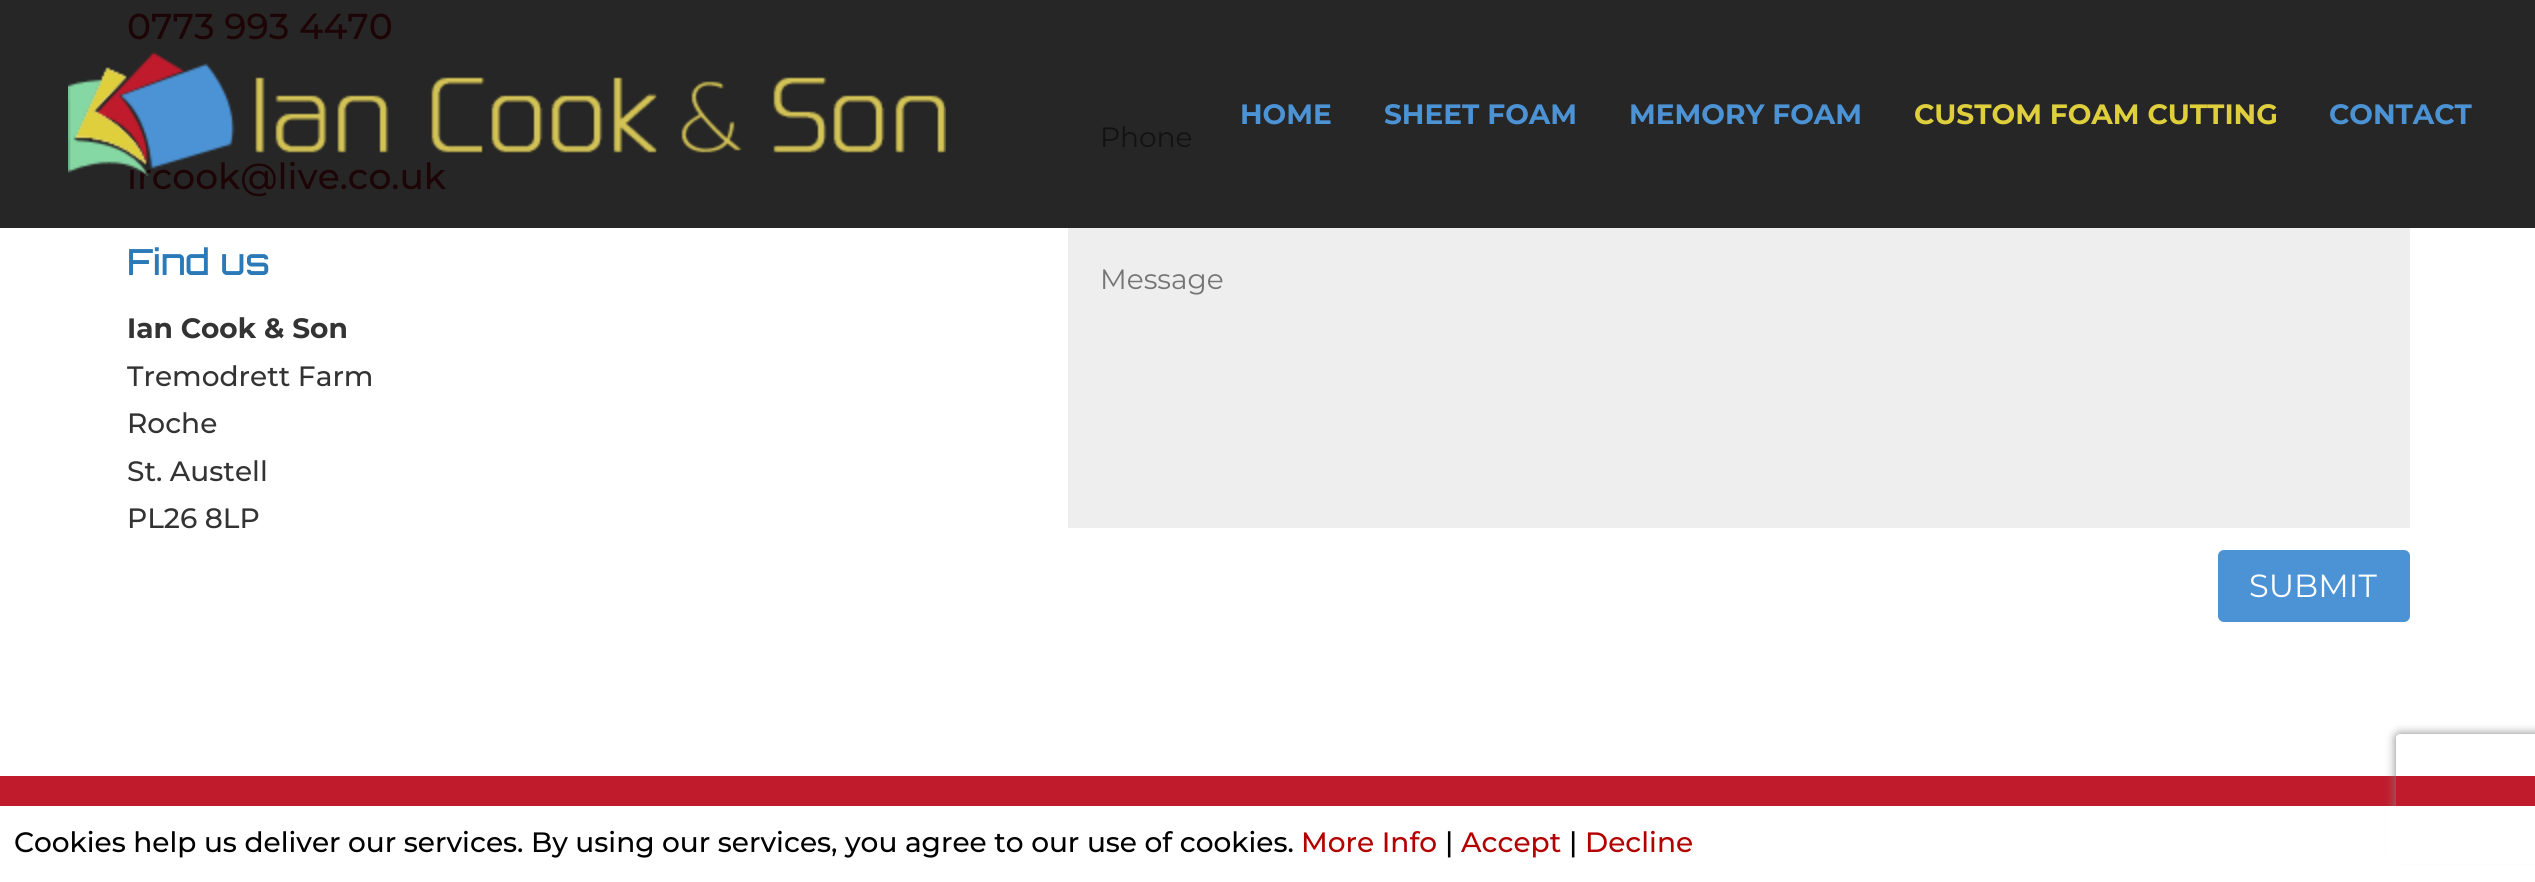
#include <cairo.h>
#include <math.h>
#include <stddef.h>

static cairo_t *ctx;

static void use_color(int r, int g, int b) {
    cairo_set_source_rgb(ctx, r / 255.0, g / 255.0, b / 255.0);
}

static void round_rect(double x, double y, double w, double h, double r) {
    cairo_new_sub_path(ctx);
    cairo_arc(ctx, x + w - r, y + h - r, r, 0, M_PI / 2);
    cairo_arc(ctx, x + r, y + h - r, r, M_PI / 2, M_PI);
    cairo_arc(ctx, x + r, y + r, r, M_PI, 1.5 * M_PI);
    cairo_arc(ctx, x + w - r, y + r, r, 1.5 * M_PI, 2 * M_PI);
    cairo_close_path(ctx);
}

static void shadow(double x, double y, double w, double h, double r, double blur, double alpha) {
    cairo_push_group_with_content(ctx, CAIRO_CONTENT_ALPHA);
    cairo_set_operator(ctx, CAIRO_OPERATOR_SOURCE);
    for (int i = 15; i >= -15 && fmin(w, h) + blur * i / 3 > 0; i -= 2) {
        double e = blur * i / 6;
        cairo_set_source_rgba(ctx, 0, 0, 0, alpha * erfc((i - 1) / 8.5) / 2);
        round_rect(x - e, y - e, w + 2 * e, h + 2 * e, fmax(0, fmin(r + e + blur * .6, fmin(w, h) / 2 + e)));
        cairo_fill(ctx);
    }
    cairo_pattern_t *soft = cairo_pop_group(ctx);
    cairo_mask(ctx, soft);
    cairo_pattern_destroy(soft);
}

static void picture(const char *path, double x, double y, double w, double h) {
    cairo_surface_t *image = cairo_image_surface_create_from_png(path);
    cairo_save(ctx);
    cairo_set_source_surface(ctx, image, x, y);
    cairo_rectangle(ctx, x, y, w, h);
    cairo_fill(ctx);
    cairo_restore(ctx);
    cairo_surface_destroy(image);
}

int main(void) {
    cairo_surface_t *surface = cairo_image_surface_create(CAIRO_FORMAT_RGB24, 2535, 882);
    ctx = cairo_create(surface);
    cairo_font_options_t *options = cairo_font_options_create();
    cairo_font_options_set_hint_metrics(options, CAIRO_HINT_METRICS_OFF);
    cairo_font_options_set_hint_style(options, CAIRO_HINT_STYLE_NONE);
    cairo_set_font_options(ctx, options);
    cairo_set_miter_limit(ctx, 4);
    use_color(255, 255, 255);
    cairo_paint(ctx);
    use_color(38, 38, 38);
    cairo_rectangle(ctx, 0, 0, 2535, 228);
    cairo_fill(ctx);
    cairo_select_font_face(ctx, "Montserrat Medium", CAIRO_FONT_SLANT_NORMAL, CAIRO_FONT_WEIGHT_NORMAL);
    cairo_set_font_size(ctx, 36);
    use_color(29, 4, 7);
    cairo_move_to(ctx, 127, 39);
    cairo_show_text(ctx, "0773 993 4470");
    cairo_move_to(ctx, 127, 189);
    cairo_show_text(ctx, "ircook@live.co.uk");
    cairo_select_font_face(ctx, "Orbitron Medium", CAIRO_FONT_SLANT_NORMAL, CAIRO_FONT_WEIGHT_NORMAL);
    use_color(43, 121, 183);
    cairo_move_to(ctx, 127, 275);
    cairo_show_text(ctx, "Find us");
    cairo_select_font_face(ctx, "Montserrat", CAIRO_FONT_SLANT_NORMAL, CAIRO_FONT_WEIGHT_BOLD);
    cairo_set_font_size(ctx, 28);
    use_color(51, 51, 51);
    cairo_move_to(ctx, 127, 338);
    cairo_show_text(ctx, "Ian Cook & Son");
    cairo_select_font_face(ctx, "Montserrat Medium", CAIRO_FONT_SLANT_NORMAL, CAIRO_FONT_WEIGHT_NORMAL);
    cairo_move_to(ctx, 127, 386);
    cairo_show_text(ctx, "Tremodrett Farm");
    cairo_move_to(ctx, 127, 433);
    cairo_show_text(ctx, "Roche");
    cairo_move_to(ctx, 127, 481);
    cairo_show_text(ctx, "St. Austell");
    cairo_move_to(ctx, 127, 528);
    cairo_show_text(ctx, "PL26 8LP");
    cairo_select_font_face(ctx, "Montserrat", CAIRO_FONT_SLANT_NORMAL, CAIRO_FONT_WEIGHT_NORMAL);
    use_color(18, 18, 18);
    cairo_move_to(ctx, 1100, 147);
    cairo_show_text(ctx, "Phone");
    use_color(238, 238, 238);
    cairo_rectangle(ctx, 1068, 228, 1342, 300);
    cairo_fill(ctx);
    use_color(117, 117, 117);
    cairo_move_to(ctx, 1100, 289);
    cairo_show_text(ctx, "Message");
    use_color(76, 147, 213);
    round_rect(2218, 550, 192, 72, 6);
    cairo_fill(ctx);
    cairo_set_font_size(ctx, 32);
    use_color(255, 255, 255);
    cairo_move_to(ctx, 2249, 597);
    cairo_show_text(ctx, "SUBMIT");
    use_color(192, 27, 44);
    cairo_rectangle(ctx, 0, 776, 2535, 30);
    cairo_fill(ctx);
    picture("img1.png", 68, 52, 878, 124);
    cairo_select_font_face(ctx, "Montserrat", CAIRO_FONT_SLANT_NORMAL, CAIRO_FONT_WEIGHT_BOLD);
    cairo_set_font_size(ctx, 28);
    use_color(76, 147, 213);
    cairo_move_to(ctx, 1240, 124);
    cairo_show_text(ctx, "HOME");
    cairo_move_to(ctx, 1384, 124);
    cairo_show_text(ctx, "SHEET FOAM");
    cairo_move_to(ctx, 1629, 124);
    cairo_show_text(ctx, "MEMORY FOAM");
    use_color(223, 207, 61);
    cairo_move_to(ctx, 1914, 124);
    cairo_show_text(ctx, "CUSTOM FOAM CUTTING");
    use_color(76, 147, 213);
    cairo_move_to(ctx, 2329, 124);
    cairo_show_text(ctx, "CONTACT");
    cairo_save(ctx);
    cairo_set_fill_rule(ctx, CAIRO_FILL_RULE_EVEN_ODD);
    cairo_new_path(ctx);
    cairo_move_to(ctx, 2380, 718);
    cairo_line_to(ctx, 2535, 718);
    cairo_line_to(ctx, 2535, 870);
    cairo_line_to(ctx, 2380, 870);
    cairo_close_path(ctx);
    cairo_move_to(ctx, 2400, 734);
    cairo_line_to(ctx, 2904, 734);
    cairo_curve_to(ctx, 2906, 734, 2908, 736, 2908, 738);
    cairo_line_to(ctx, 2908, 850);
    cairo_curve_to(ctx, 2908, 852, 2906, 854, 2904, 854);
    cairo_line_to(ctx, 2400, 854);
    cairo_curve_to(ctx, 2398, 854, 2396, 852, 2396, 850);
    cairo_line_to(ctx, 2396, 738);
    cairo_curve_to(ctx, 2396, 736, 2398, 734, 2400, 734);
    cairo_close_path(ctx);
    cairo_clip(ctx);
    use_color(128, 128, 128);
    shadow(2396, 734, 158, 120, 4, 5, 1);
    cairo_restore(ctx);
    use_color(255, 255, 255);
    cairo_rectangle(ctx, 2386, 806, 149, 58);
    cairo_fill(ctx);
    cairo_select_font_face(ctx, "Montserrat Medium", CAIRO_FONT_SLANT_NORMAL, CAIRO_FONT_WEIGHT_NORMAL);
    use_color(0, 0, 0);
    cairo_move_to(ctx, 14, 852);
    cairo_show_text(ctx, "Cookies help us deliver our services. By using our services, you agree to our use of cookies.");
    use_color(179, 0, 0);
    cairo_move_to(ctx, 1301, 852);
    cairo_show_text(ctx, "More Info");
    use_color(0, 0, 0);
    cairo_move_to(ctx, 1445, 852);
    cairo_show_text(ctx, "|");
    use_color(179, 0, 0);
    cairo_move_to(ctx, 1461, 852);
    cairo_show_text(ctx, "Accept");
    use_color(0, 0, 0);
    cairo_move_to(ctx, 1569, 852);
    cairo_show_text(ctx, "|");
    use_color(179, 0, 0);
    cairo_move_to(ctx, 1585, 852);
    cairo_show_text(ctx, "Decline");
    cairo_surface_write_to_png(surface, "result.png");
    cairo_font_options_destroy(options);
    cairo_destroy(ctx);
    cairo_surface_destroy(surface);
    return 0;
}
